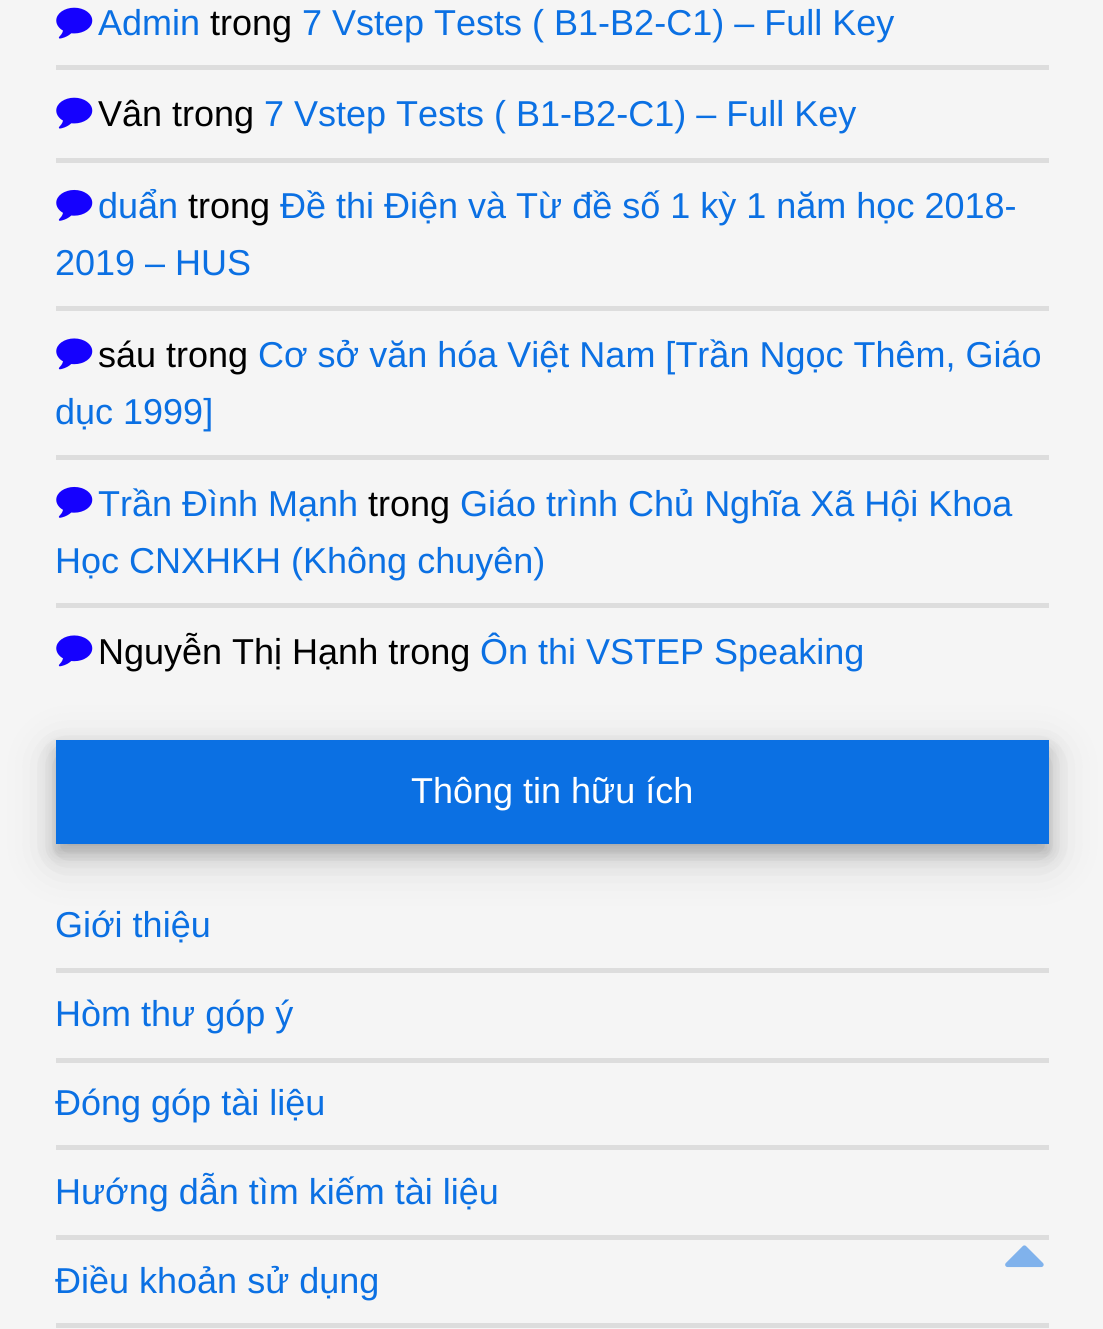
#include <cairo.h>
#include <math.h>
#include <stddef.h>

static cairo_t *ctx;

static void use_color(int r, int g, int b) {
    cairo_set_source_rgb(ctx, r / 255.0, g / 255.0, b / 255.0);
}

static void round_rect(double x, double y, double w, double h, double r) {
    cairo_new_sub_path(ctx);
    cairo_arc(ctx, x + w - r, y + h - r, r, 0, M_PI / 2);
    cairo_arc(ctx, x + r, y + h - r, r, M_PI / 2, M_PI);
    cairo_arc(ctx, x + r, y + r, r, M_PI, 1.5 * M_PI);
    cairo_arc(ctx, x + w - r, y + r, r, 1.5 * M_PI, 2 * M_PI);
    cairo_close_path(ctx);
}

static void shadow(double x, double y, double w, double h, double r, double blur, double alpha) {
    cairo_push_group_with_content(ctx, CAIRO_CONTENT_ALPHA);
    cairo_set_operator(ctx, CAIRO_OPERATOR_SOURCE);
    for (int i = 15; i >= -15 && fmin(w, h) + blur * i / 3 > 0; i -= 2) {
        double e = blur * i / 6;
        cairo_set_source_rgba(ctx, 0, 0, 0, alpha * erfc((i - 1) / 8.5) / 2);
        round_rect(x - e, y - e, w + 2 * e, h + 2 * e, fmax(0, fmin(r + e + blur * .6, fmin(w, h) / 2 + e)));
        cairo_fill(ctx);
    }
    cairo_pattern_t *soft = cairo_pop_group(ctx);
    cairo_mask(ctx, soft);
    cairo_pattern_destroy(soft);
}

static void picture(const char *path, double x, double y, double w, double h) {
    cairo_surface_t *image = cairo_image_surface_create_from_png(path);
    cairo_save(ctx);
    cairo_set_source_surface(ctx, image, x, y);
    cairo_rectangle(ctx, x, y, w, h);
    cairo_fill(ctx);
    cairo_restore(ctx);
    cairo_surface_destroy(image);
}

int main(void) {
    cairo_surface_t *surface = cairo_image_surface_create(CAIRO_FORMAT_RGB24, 1103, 1329);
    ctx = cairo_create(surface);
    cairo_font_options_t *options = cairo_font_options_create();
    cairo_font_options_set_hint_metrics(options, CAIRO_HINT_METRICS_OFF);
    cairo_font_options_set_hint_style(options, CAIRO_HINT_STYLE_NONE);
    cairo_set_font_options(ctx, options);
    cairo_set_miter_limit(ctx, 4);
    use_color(245, 245, 245);
    cairo_paint(ctx);
    use_color(221, 221, 221);
    cairo_rectangle(ctx, 56, 65, 993, 5);
    cairo_fill(ctx);
    picture("img1.png", 56, 7, 37, 32);
    cairo_select_font_face(ctx, "Liberation Sans", CAIRO_FONT_SLANT_NORMAL, CAIRO_FONT_WEIGHT_NORMAL);
    cairo_set_font_size(ctx, 36);
    use_color(11, 112, 227);
    cairo_move_to(ctx, 98, 35);
    cairo_show_text(ctx, "Admin");
    use_color(0, 0, 0);
    cairo_move_to(ctx, 210, 35);
    cairo_show_text(ctx, "trong");
    use_color(11, 112, 227);
    cairo_move_to(ctx, 302, 35);
    cairo_show_text(ctx, "7 Vstep Tests ( B1-B2-C1) – Full Key");
    use_color(221, 221, 221);
    cairo_rectangle(ctx, 56, 158, 993, 5);
    cairo_fill(ctx);
    picture("img1.png", 56, 97, 37, 32);
    use_color(0, 0, 0);
    cairo_move_to(ctx, 98, 126);
    cairo_show_text(ctx, "Vân trong");
    use_color(11, 112, 227);
    cairo_move_to(ctx, 264, 126);
    cairo_show_text(ctx, "7 Vstep Tests ( B1-B2-C1) – Full Key");
    use_color(221, 221, 221);
    cairo_rectangle(ctx, 56, 306, 993, 5);
    cairo_fill(ctx);
    picture("img2.png", 56, 189, 37, 32);
    use_color(11, 112, 227);
    cairo_move_to(ctx, 98, 218);
    cairo_show_text(ctx, "duẩn");
    use_color(0, 0, 0);
    cairo_move_to(ctx, 188, 218);
    cairo_show_text(ctx, "trong");
    use_color(11, 112, 227);
    cairo_move_to(ctx, 280, 218);
    cairo_show_text(ctx, "Đề thi Điện và Từ đề số 1 kỳ 1 năm học 2018-");
    cairo_move_to(ctx, 55, 275);
    cairo_show_text(ctx, "2019 – HUS");
    use_color(221, 221, 221);
    cairo_rectangle(ctx, 56, 455, 993, 5);
    cairo_fill(ctx);
    picture("img3.png", 56, 338, 37, 32);
    use_color(0, 0, 0);
    cairo_move_to(ctx, 98, 367);
    cairo_show_text(ctx, "sáu trong");
    use_color(11, 112, 227);
    cairo_move_to(ctx, 258, 367);
    cairo_show_text(ctx, "Cơ sở văn hóa Việt Nam [Trần Ngọc Thêm, Giáo");
    cairo_move_to(ctx, 55, 424);
    cairo_show_text(ctx, "dục 1999]");
    use_color(221, 221, 221);
    cairo_rectangle(ctx, 56, 603, 993, 5);
    cairo_fill(ctx);
    picture("img2.png", 56, 486, 37, 32);
    use_color(11, 112, 227);
    cairo_move_to(ctx, 98, 516);
    cairo_show_text(ctx, "Trần Đình Mạnh");
    use_color(0, 0, 0);
    cairo_move_to(ctx, 368, 516);
    cairo_show_text(ctx, "trong");
    use_color(11, 112, 227);
    cairo_move_to(ctx, 460, 516);
    cairo_show_text(ctx, "Giáo trình Chủ Nghĩa Xã Hội Khoa");
    cairo_move_to(ctx, 55, 573);
    cairo_show_text(ctx, "Học CNXHKH (Không chuyên)");
    picture("img3.png", 56, 635, 37, 32);
    use_color(0, 0, 0);
    cairo_move_to(ctx, 98, 664);
    cairo_show_text(ctx, "Nguyễn Thị Hạnh trong");
    use_color(11, 112, 227);
    cairo_move_to(ctx, 480, 664);
    cairo_show_text(ctx, "Ôn thi VSTEP Speaking");
    use_color(0, 0, 0);
    shadow(56, 754, 993, 103, 0, 22.5, 0.19);
    shadow(56, 749, 993, 104, 0, 9, 0.2);
    use_color(11, 112, 227);
    cairo_rectangle(ctx, 56, 740, 993, 104);
    cairo_fill(ctx);
    use_color(255, 255, 255);
    cairo_move_to(ctx, 411, 803);
    cairo_show_text(ctx, "Thông tin hữu ích");
    use_color(221, 221, 221);
    cairo_rectangle(ctx, 56, 968, 993, 5);
    cairo_fill(ctx);
    use_color(11, 112, 227);
    cairo_move_to(ctx, 55, 937);
    cairo_show_text(ctx, "Giới thiệu");
    use_color(221, 221, 221);
    cairo_rectangle(ctx, 56, 1058, 993, 5);
    cairo_fill(ctx);
    use_color(11, 112, 227);
    cairo_move_to(ctx, 55, 1026);
    cairo_show_text(ctx, "Hòm thư góp ý");
    use_color(221, 221, 221);
    cairo_rectangle(ctx, 56, 1145, 993, 5);
    cairo_fill(ctx);
    use_color(11, 112, 227);
    cairo_move_to(ctx, 55, 1115);
    cairo_show_text(ctx, "Đóng góp tài liệu");
    use_color(221, 221, 221);
    cairo_rectangle(ctx, 56, 1235, 993, 5);
    cairo_fill(ctx);
    use_color(11, 112, 227);
    cairo_move_to(ctx, 55, 1204);
    cairo_show_text(ctx, "Hướng dẫn tìm kiếm tài liệu");
    use_color(221, 221, 221);
    cairo_rectangle(ctx, 56, 1323, 993, 5);
    cairo_fill(ctx);
    use_color(11, 112, 227);
    cairo_move_to(ctx, 55, 1293);
    cairo_show_text(ctx, "Điều khoản sử dụng");
    picture("img4.png", 1005, 1245, 39, 23);
    cairo_surface_write_to_png(surface, "result.png");
    cairo_font_options_destroy(options);
    cairo_destroy(ctx);
    cairo_surface_destroy(surface);
    return 0;
}
